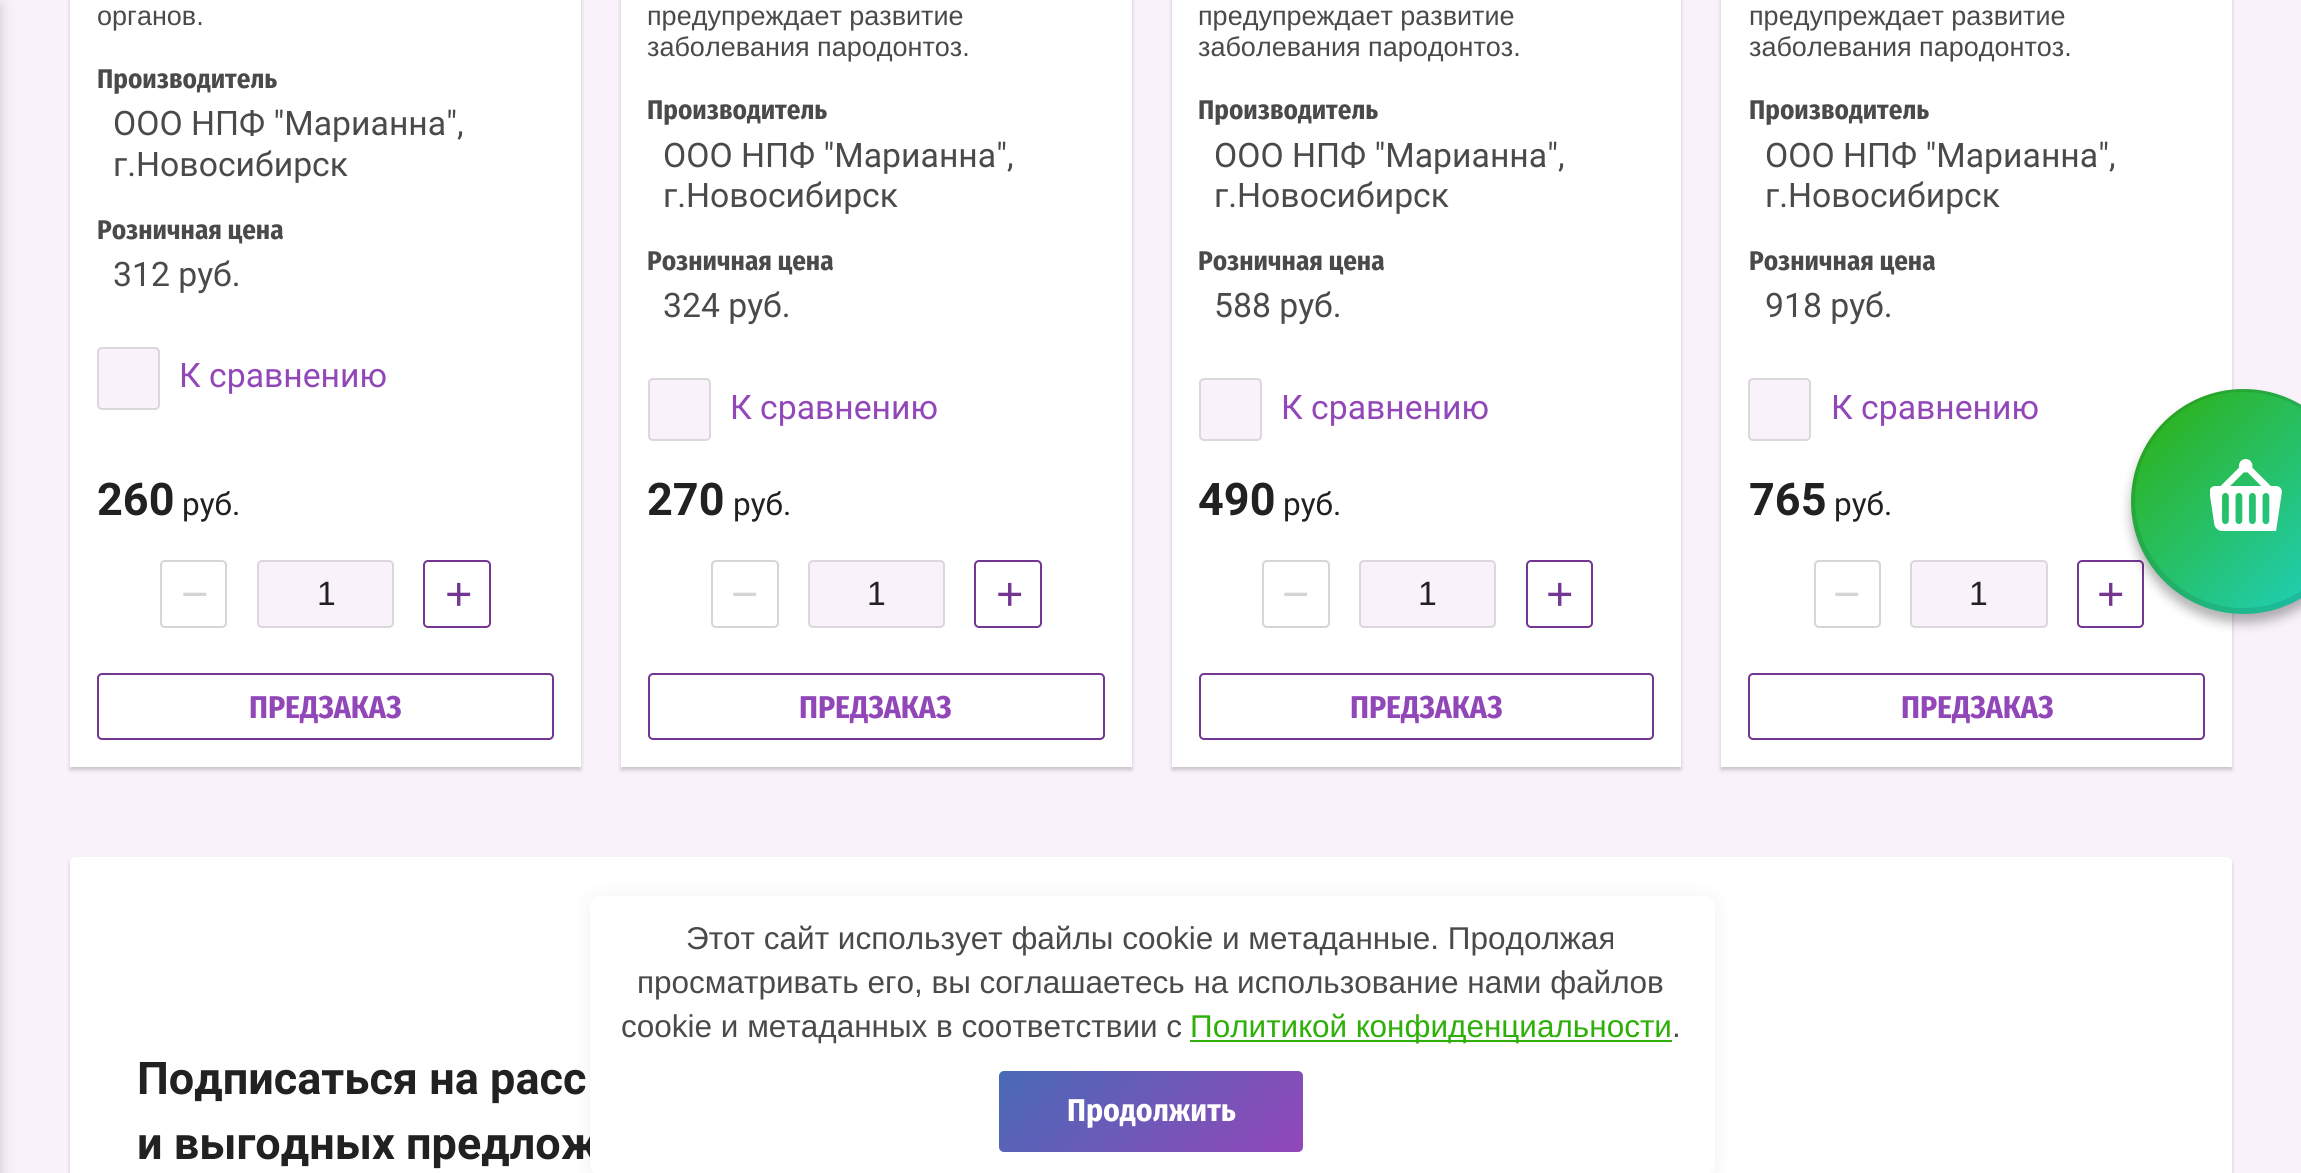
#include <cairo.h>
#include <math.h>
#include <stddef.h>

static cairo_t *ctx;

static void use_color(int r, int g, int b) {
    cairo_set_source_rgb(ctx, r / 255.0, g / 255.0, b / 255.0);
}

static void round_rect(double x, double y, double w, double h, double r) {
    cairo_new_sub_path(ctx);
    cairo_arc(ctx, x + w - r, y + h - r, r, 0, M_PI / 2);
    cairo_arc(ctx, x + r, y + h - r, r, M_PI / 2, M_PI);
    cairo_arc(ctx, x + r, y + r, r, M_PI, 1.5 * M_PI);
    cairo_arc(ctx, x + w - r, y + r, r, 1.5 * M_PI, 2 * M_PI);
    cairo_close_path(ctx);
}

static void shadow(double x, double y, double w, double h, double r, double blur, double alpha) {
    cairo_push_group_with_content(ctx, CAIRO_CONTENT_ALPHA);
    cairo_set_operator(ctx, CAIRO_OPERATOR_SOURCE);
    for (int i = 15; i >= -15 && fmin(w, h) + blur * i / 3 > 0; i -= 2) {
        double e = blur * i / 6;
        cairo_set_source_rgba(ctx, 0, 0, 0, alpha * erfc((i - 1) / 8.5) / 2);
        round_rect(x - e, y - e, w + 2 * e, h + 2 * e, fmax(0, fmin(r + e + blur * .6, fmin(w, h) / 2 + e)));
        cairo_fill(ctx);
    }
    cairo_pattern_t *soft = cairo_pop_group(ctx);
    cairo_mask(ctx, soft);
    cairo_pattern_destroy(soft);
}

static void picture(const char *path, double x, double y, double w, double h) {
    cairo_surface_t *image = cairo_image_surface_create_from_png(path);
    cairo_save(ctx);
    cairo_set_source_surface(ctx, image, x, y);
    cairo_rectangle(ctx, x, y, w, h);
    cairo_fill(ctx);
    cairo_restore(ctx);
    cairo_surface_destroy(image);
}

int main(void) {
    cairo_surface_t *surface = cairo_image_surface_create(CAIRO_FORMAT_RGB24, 2301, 1173);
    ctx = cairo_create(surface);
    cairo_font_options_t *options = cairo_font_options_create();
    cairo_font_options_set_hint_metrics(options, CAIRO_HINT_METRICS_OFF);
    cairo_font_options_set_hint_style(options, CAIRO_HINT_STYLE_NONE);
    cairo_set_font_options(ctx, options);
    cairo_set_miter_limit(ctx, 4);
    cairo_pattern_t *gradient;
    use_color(249, 242, 251);
    cairo_paint(ctx);
    use_color(0, 0, 0);
    shadow(-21, 5, 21, 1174, 0, 7, 0.2);
    shadow(70, -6, 511, 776, 0, 2, 0.2);
    use_color(255, 255, 255);
    cairo_rectangle(ctx, 70, 0, 511, 767);
    cairo_fill(ctx);
    cairo_select_font_face(ctx, "Liberation Sans", CAIRO_FONT_SLANT_NORMAL, CAIRO_FONT_WEIGHT_NORMAL);
    cairo_set_font_size(ctx, 27);
    use_color(74, 74, 74);
    cairo_move_to(ctx, 97, 25);
    cairo_show_text(ctx, "органов.");
    cairo_select_font_face(ctx, "Fira Sans Condensed", CAIRO_FONT_SLANT_NORMAL, CAIRO_FONT_WEIGHT_BOLD);
    cairo_move_to(ctx, 97, 88);
    cairo_show_text(ctx, "Производитель");
    cairo_select_font_face(ctx, "Roboto", CAIRO_FONT_SLANT_NORMAL, CAIRO_FONT_WEIGHT_NORMAL);
    cairo_set_font_size(ctx, 33.75);
    cairo_move_to(ctx, 113, 135);
    cairo_show_text(ctx, "ООО НПФ \"Марианна\",");
    cairo_move_to(ctx, 113, 176);
    cairo_show_text(ctx, "г.Новосибирск");
    cairo_select_font_face(ctx, "Fira Sans Condensed", CAIRO_FONT_SLANT_NORMAL, CAIRO_FONT_WEIGHT_BOLD);
    cairo_set_font_size(ctx, 27);
    cairo_move_to(ctx, 97, 239);
    cairo_show_text(ctx, "Розничная цена");
    cairo_select_font_face(ctx, "Roboto", CAIRO_FONT_SLANT_NORMAL, CAIRO_FONT_WEIGHT_NORMAL);
    cairo_set_font_size(ctx, 33.75);
    cairo_move_to(ctx, 113, 286);
    cairo_show_text(ctx, "312 руб.");
    use_color(249, 242, 251);
    round_rect(97, 347, 63, 63, 5);
    cairo_fill(ctx);
    round_rect(98, 348, 61, 61, 4);
    cairo_set_source_rgba(ctx, 0, 0, 0, 0.12);
    cairo_stroke(ctx);
    use_color(146, 71, 185);
    cairo_move_to(ctx, 179, 387);
    cairo_show_text(ctx, "К сравнению");
    cairo_select_font_face(ctx, "Roboto", CAIRO_FONT_SLANT_NORMAL, CAIRO_FONT_WEIGHT_BOLD);
    cairo_set_font_size(ctx, 45);
    use_color(33, 33, 33);
    cairo_move_to(ctx, 97, 515);
    cairo_show_text(ctx, "260");
    cairo_select_font_face(ctx, "Roboto", CAIRO_FONT_SLANT_NORMAL, CAIRO_FONT_WEIGHT_NORMAL);
    cairo_set_font_size(ctx, 31.5);
    cairo_move_to(ctx, 182, 515);
    cairo_show_text(ctx, "руб.");
    round_rect(161, 561, 65, 66, 4);
    use_color(213, 213, 213);
    cairo_stroke(ctx);
    cairo_select_font_face(ctx, "Liberation Sans", CAIRO_FONT_SLANT_NORMAL, CAIRO_FONT_WEIGHT_NORMAL);
    cairo_set_font_size(ctx, 47);
    cairo_move_to(ctx, 181, 610);
    cairo_show_text(ctx, "−");
    use_color(249, 242, 251);
    round_rect(257, 560, 137, 68, 5);
    cairo_fill(ctx);
    round_rect(258, 561, 135, 66, 4);
    cairo_set_source_rgba(ctx, 0, 0, 0, 0.12);
    cairo_stroke(ctx);
    cairo_set_font_size(ctx, 33.75);
    use_color(33, 33, 33);
    cairo_move_to(ctx, 317, 605);
    cairo_show_text(ctx, "1");
    round_rect(424, 561, 66, 66, 4);
    use_color(115, 55, 146);
    cairo_stroke(ctx);
    cairo_set_font_size(ctx, 47);
    cairo_move_to(ctx, 445, 610);
    cairo_show_text(ctx, "+");
    round_rect(98, 674, 455, 65, 4);
    cairo_stroke(ctx);
    cairo_select_font_face(ctx, "Fira Sans Condensed", CAIRO_FONT_SLANT_NORMAL, CAIRO_FONT_WEIGHT_BOLD);
    cairo_set_font_size(ctx, 31.5);
    use_color(146, 71, 185);
    cairo_move_to(ctx, 249, 718);
    cairo_show_text(ctx, "ПРЕДЗАКАЗ");
    use_color(0, 0, 0);
    shadow(621, -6, 511, 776, 0, 2, 0.2);
    use_color(255, 255, 255);
    cairo_rectangle(ctx, 621, 0, 511, 767);
    cairo_fill(ctx);
    cairo_select_font_face(ctx, "Liberation Sans", CAIRO_FONT_SLANT_NORMAL, CAIRO_FONT_WEIGHT_NORMAL);
    cairo_set_font_size(ctx, 27);
    use_color(74, 74, 74);
    cairo_move_to(ctx, 647, 25);
    cairo_show_text(ctx, "предупреждает развитие");
    cairo_move_to(ctx, 647, 56);
    cairo_show_text(ctx, "заболевания пародонтоз.");
    cairo_select_font_face(ctx, "Fira Sans Condensed", CAIRO_FONT_SLANT_NORMAL, CAIRO_FONT_WEIGHT_BOLD);
    cairo_move_to(ctx, 647, 119);
    cairo_show_text(ctx, "Производитель");
    cairo_select_font_face(ctx, "Roboto", CAIRO_FONT_SLANT_NORMAL, CAIRO_FONT_WEIGHT_NORMAL);
    cairo_set_font_size(ctx, 33.75);
    cairo_move_to(ctx, 663, 167);
    cairo_show_text(ctx, "ООО НПФ \"Марианна\",");
    cairo_move_to(ctx, 663, 207);
    cairo_show_text(ctx, "г.Новосибирск");
    cairo_select_font_face(ctx, "Fira Sans Condensed", CAIRO_FONT_SLANT_NORMAL, CAIRO_FONT_WEIGHT_BOLD);
    cairo_set_font_size(ctx, 27);
    cairo_move_to(ctx, 647, 270);
    cairo_show_text(ctx, "Розничная цена");
    cairo_select_font_face(ctx, "Roboto", CAIRO_FONT_SLANT_NORMAL, CAIRO_FONT_WEIGHT_NORMAL);
    cairo_set_font_size(ctx, 33.75);
    cairo_move_to(ctx, 663, 317);
    cairo_show_text(ctx, "324 руб.");
    use_color(249, 242, 251);
    round_rect(648, 378, 63, 63, 5);
    cairo_fill(ctx);
    round_rect(649, 379, 61, 61, 4);
    cairo_set_source_rgba(ctx, 0, 0, 0, 0.12);
    cairo_stroke(ctx);
    use_color(146, 71, 185);
    cairo_move_to(ctx, 730, 419);
    cairo_show_text(ctx, "К сравнению");
    cairo_select_font_face(ctx, "Roboto", CAIRO_FONT_SLANT_NORMAL, CAIRO_FONT_WEIGHT_BOLD);
    cairo_set_font_size(ctx, 45);
    use_color(33, 33, 33);
    cairo_move_to(ctx, 647, 515);
    cairo_show_text(ctx, "270");
    cairo_select_font_face(ctx, "Roboto", CAIRO_FONT_SLANT_NORMAL, CAIRO_FONT_WEIGHT_NORMAL);
    cairo_set_font_size(ctx, 31.5);
    cairo_move_to(ctx, 733, 515);
    cairo_show_text(ctx, "руб.");
    round_rect(712, 561, 66, 66, 4);
    use_color(213, 213, 213);
    cairo_stroke(ctx);
    cairo_select_font_face(ctx, "Liberation Sans", CAIRO_FONT_SLANT_NORMAL, CAIRO_FONT_WEIGHT_NORMAL);
    cairo_set_font_size(ctx, 47);
    cairo_move_to(ctx, 731, 610);
    cairo_show_text(ctx, "−");
    use_color(249, 242, 251);
    round_rect(808, 560, 137, 68, 5);
    cairo_fill(ctx);
    round_rect(809, 561, 135, 66, 4);
    cairo_set_source_rgba(ctx, 0, 0, 0, 0.12);
    cairo_stroke(ctx);
    cairo_set_font_size(ctx, 33.75);
    use_color(33, 33, 33);
    cairo_move_to(ctx, 867, 605);
    cairo_show_text(ctx, "1");
    round_rect(975, 561, 66, 66, 4);
    use_color(115, 55, 146);
    cairo_stroke(ctx);
    cairo_set_font_size(ctx, 47);
    cairo_move_to(ctx, 996, 610);
    cairo_show_text(ctx, "+");
    round_rect(649, 674, 455, 65, 4);
    cairo_stroke(ctx);
    cairo_select_font_face(ctx, "Fira Sans Condensed", CAIRO_FONT_SLANT_NORMAL, CAIRO_FONT_WEIGHT_BOLD);
    cairo_set_font_size(ctx, 31.5);
    use_color(146, 71, 185);
    cairo_move_to(ctx, 799, 718);
    cairo_show_text(ctx, "ПРЕДЗАКАЗ");
    use_color(0, 0, 0);
    shadow(1172, -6, 509, 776, 0, 2, 0.2);
    use_color(255, 255, 255);
    cairo_rectangle(ctx, 1172, 0, 509, 767);
    cairo_fill(ctx);
    cairo_select_font_face(ctx, "Liberation Sans", CAIRO_FONT_SLANT_NORMAL, CAIRO_FONT_WEIGHT_NORMAL);
    cairo_set_font_size(ctx, 27);
    use_color(74, 74, 74);
    cairo_move_to(ctx, 1198, 25);
    cairo_show_text(ctx, "предупреждает развитие");
    cairo_move_to(ctx, 1198, 56);
    cairo_show_text(ctx, "заболевания пародонтоз.");
    cairo_select_font_face(ctx, "Fira Sans Condensed", CAIRO_FONT_SLANT_NORMAL, CAIRO_FONT_WEIGHT_BOLD);
    cairo_move_to(ctx, 1198, 119);
    cairo_show_text(ctx, "Производитель");
    cairo_select_font_face(ctx, "Roboto", CAIRO_FONT_SLANT_NORMAL, CAIRO_FONT_WEIGHT_NORMAL);
    cairo_set_font_size(ctx, 33.75);
    cairo_move_to(ctx, 1214, 167);
    cairo_show_text(ctx, "ООО НПФ \"Марианна\",");
    cairo_move_to(ctx, 1214, 207);
    cairo_show_text(ctx, "г.Новосибирск");
    cairo_select_font_face(ctx, "Fira Sans Condensed", CAIRO_FONT_SLANT_NORMAL, CAIRO_FONT_WEIGHT_BOLD);
    cairo_set_font_size(ctx, 27);
    cairo_move_to(ctx, 1198, 270);
    cairo_show_text(ctx, "Розничная цена");
    cairo_select_font_face(ctx, "Roboto", CAIRO_FONT_SLANT_NORMAL, CAIRO_FONT_WEIGHT_NORMAL);
    cairo_set_font_size(ctx, 33.75);
    cairo_move_to(ctx, 1214, 317);
    cairo_show_text(ctx, "588 руб.");
    use_color(249, 242, 251);
    round_rect(1199, 378, 63, 63, 5);
    cairo_fill(ctx);
    round_rect(1200, 379, 61, 61, 4);
    cairo_set_source_rgba(ctx, 0, 0, 0, 0.12);
    cairo_stroke(ctx);
    use_color(146, 71, 185);
    cairo_move_to(ctx, 1281, 419);
    cairo_show_text(ctx, "К сравнению");
    cairo_select_font_face(ctx, "Roboto", CAIRO_FONT_SLANT_NORMAL, CAIRO_FONT_WEIGHT_BOLD);
    cairo_set_font_size(ctx, 45);
    use_color(33, 33, 33);
    cairo_move_to(ctx, 1198, 515);
    cairo_show_text(ctx, "490");
    cairo_select_font_face(ctx, "Roboto", CAIRO_FONT_SLANT_NORMAL, CAIRO_FONT_WEIGHT_NORMAL);
    cairo_set_font_size(ctx, 31.5);
    cairo_move_to(ctx, 1283, 515);
    cairo_show_text(ctx, "руб.");
    round_rect(1263, 561, 66, 66, 4);
    use_color(213, 213, 213);
    cairo_stroke(ctx);
    cairo_select_font_face(ctx, "Liberation Sans", CAIRO_FONT_SLANT_NORMAL, CAIRO_FONT_WEIGHT_NORMAL);
    cairo_set_font_size(ctx, 47);
    cairo_move_to(ctx, 1282, 610);
    cairo_show_text(ctx, "−");
    use_color(249, 242, 251);
    round_rect(1359, 560, 137, 68, 5);
    cairo_fill(ctx);
    round_rect(1360, 561, 135, 66, 4);
    cairo_set_source_rgba(ctx, 0, 0, 0, 0.12);
    cairo_stroke(ctx);
    cairo_set_font_size(ctx, 33.75);
    use_color(33, 33, 33);
    cairo_move_to(ctx, 1418, 605);
    cairo_show_text(ctx, "1");
    round_rect(1527, 561, 65, 66, 4);
    use_color(115, 55, 146);
    cairo_stroke(ctx);
    cairo_set_font_size(ctx, 47);
    cairo_move_to(ctx, 1546, 610);
    cairo_show_text(ctx, "+");
    round_rect(1200, 674, 453, 65, 4);
    cairo_stroke(ctx);
    cairo_select_font_face(ctx, "Fira Sans Condensed", CAIRO_FONT_SLANT_NORMAL, CAIRO_FONT_WEIGHT_BOLD);
    cairo_set_font_size(ctx, 31.5);
    use_color(146, 71, 185);
    cairo_move_to(ctx, 1350, 718);
    cairo_show_text(ctx, "ПРЕДЗАКАЗ");
    use_color(0, 0, 0);
    shadow(1721, -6, 511, 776, 0, 2, 0.2);
    use_color(255, 255, 255);
    cairo_rectangle(ctx, 1721, 0, 511, 767);
    cairo_fill(ctx);
    cairo_select_font_face(ctx, "Liberation Sans", CAIRO_FONT_SLANT_NORMAL, CAIRO_FONT_WEIGHT_NORMAL);
    cairo_set_font_size(ctx, 27);
    use_color(74, 74, 74);
    cairo_move_to(ctx, 1749, 25);
    cairo_show_text(ctx, "предупреждает развитие");
    cairo_move_to(ctx, 1749, 56);
    cairo_show_text(ctx, "заболевания пародонтоз.");
    cairo_select_font_face(ctx, "Fira Sans Condensed", CAIRO_FONT_SLANT_NORMAL, CAIRO_FONT_WEIGHT_BOLD);
    cairo_move_to(ctx, 1749, 119);
    cairo_show_text(ctx, "Производитель");
    cairo_select_font_face(ctx, "Roboto", CAIRO_FONT_SLANT_NORMAL, CAIRO_FONT_WEIGHT_NORMAL);
    cairo_set_font_size(ctx, 33.75);
    cairo_move_to(ctx, 1765, 167);
    cairo_show_text(ctx, "ООО НПФ \"Марианна\",");
    cairo_move_to(ctx, 1765, 207);
    cairo_show_text(ctx, "г.Новосибирск");
    cairo_select_font_face(ctx, "Fira Sans Condensed", CAIRO_FONT_SLANT_NORMAL, CAIRO_FONT_WEIGHT_BOLD);
    cairo_set_font_size(ctx, 27);
    cairo_move_to(ctx, 1749, 270);
    cairo_show_text(ctx, "Розничная цена");
    cairo_select_font_face(ctx, "Roboto", CAIRO_FONT_SLANT_NORMAL, CAIRO_FONT_WEIGHT_NORMAL);
    cairo_set_font_size(ctx, 33.75);
    cairo_move_to(ctx, 1765, 317);
    cairo_show_text(ctx, "918 руб.");
    use_color(249, 242, 251);
    round_rect(1748, 378, 63, 63, 5);
    cairo_fill(ctx);
    round_rect(1749, 379, 61, 61, 4);
    cairo_set_source_rgba(ctx, 0, 0, 0, 0.12);
    cairo_stroke(ctx);
    use_color(146, 71, 185);
    cairo_move_to(ctx, 1831, 419);
    cairo_show_text(ctx, "К сравнению");
    cairo_select_font_face(ctx, "Roboto", CAIRO_FONT_SLANT_NORMAL, CAIRO_FONT_WEIGHT_BOLD);
    cairo_set_font_size(ctx, 45);
    use_color(33, 33, 33);
    cairo_move_to(ctx, 1749, 515);
    cairo_show_text(ctx, "765");
    cairo_select_font_face(ctx, "Roboto", CAIRO_FONT_SLANT_NORMAL, CAIRO_FONT_WEIGHT_NORMAL);
    cairo_set_font_size(ctx, 31.5);
    cairo_move_to(ctx, 1834, 515);
    cairo_show_text(ctx, "руб.");
    round_rect(1815, 561, 65, 66, 4);
    use_color(213, 213, 213);
    cairo_stroke(ctx);
    cairo_select_font_face(ctx, "Liberation Sans", CAIRO_FONT_SLANT_NORMAL, CAIRO_FONT_WEIGHT_NORMAL);
    cairo_set_font_size(ctx, 47);
    cairo_move_to(ctx, 1833, 610);
    cairo_show_text(ctx, "−");
    use_color(249, 242, 251);
    round_rect(1910, 560, 138, 68, 5);
    cairo_fill(ctx);
    round_rect(1911, 561, 136, 66, 4);
    cairo_set_source_rgba(ctx, 0, 0, 0, 0.12);
    cairo_stroke(ctx);
    cairo_set_font_size(ctx, 33.75);
    use_color(33, 33, 33);
    cairo_move_to(ctx, 1969, 605);
    cairo_show_text(ctx, "1");
    round_rect(2078, 561, 65, 66, 4);
    use_color(115, 55, 146);
    cairo_stroke(ctx);
    cairo_set_font_size(ctx, 47);
    cairo_move_to(ctx, 2097, 610);
    cairo_show_text(ctx, "+");
    round_rect(1749, 674, 455, 65, 4);
    cairo_stroke(ctx);
    cairo_select_font_face(ctx, "Fira Sans Condensed", CAIRO_FONT_SLANT_NORMAL, CAIRO_FONT_WEIGHT_BOLD);
    cairo_set_font_size(ctx, 31.5);
    use_color(146, 71, 185);
    cairo_move_to(ctx, 1901, 718);
    cairo_show_text(ctx, "ПРЕДЗАКАЗ");
    use_color(0, 0, 0);
    shadow(70, 860, 2162, 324, 5, 2, 0.2);
    use_color(255, 255, 255);
    round_rect(70, 857, 2162, 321, 5);
    cairo_fill(ctx);
    cairo_select_font_face(ctx, "Roboto", CAIRO_FONT_SLANT_NORMAL, CAIRO_FONT_WEIGHT_BOLD);
    cairo_set_font_size(ctx, 45);
    use_color(33, 33, 33);
    cairo_move_to(ctx, 137, 1094);
    cairo_show_text(ctx, "Подписаться на расс");
    cairo_move_to(ctx, 137, 1159);
    cairo_show_text(ctx, "и выгодных предлож");
    use_color(0, 0, 0);
    shadow(2131, 398, 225, 225, 112.5, 5.5, 0.3);
    gradient = cairo_pattern_create_linear(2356, 614, 2131, 389);
    cairo_pattern_add_color_stop_rgba(gradient, 0, 0.114, 0.827, 0.804, 1);
    cairo_pattern_add_color_stop_rgba(gradient, 1, 0.184, 0.686, 0.039, 1);
    cairo_set_source(ctx, gradient);
    cairo_pattern_destroy(gradient);
    cairo_arc(ctx, 2243.5, 501.5, 112.5, 0, 2 * M_PI);
    cairo_fill(ctx);
    cairo_set_source_rgba(ctx, 0, 0, 0, 0.09);
    cairo_set_fill_rule(ctx, CAIRO_FILL_RULE_EVEN_ODD);
    cairo_new_path(ctx);
    cairo_move_to(ctx, 2244, 389);
    cairo_curve_to(ctx, 2181, 389, 2131, 439, 2131, 502);
    cairo_curve_to(ctx, 2131, 564, 2181, 614, 2244, 614);
    cairo_curve_to(ctx, 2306, 614, 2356, 564, 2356, 502);
    cairo_curve_to(ctx, 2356, 439, 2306, 389, 2244, 389);
    cairo_close_path(ctx);
    cairo_move_to(ctx, 2243, 392);
    cairo_curve_to(ctx, 2184, 392, 2135, 440, 2135, 500);
    cairo_curve_to(ctx, 2135, 559, 2184, 608, 2243, 608);
    cairo_curve_to(ctx, 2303, 608, 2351, 559, 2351, 500);
    cairo_curve_to(ctx, 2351, 440, 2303, 392, 2243, 392);
    cairo_close_path(ctx);
    cairo_fill(ctx);
    picture("img1.png", 2210, 459, 72, 72);
    use_color(0, 0, 0);
    shadow(590, 898, 1125, 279, 11, 11, 0.06);
    use_color(255, 255, 255);
    round_rect(590, 896, 1125, 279, 11);
    cairo_fill(ctx);
    cairo_select_font_face(ctx, "Liberation Sans", CAIRO_FONT_SLANT_NORMAL, CAIRO_FONT_WEIGHT_NORMAL);
    cairo_set_font_size(ctx, 31.5);
    use_color(74, 74, 74);
    cairo_move_to(ctx, 686, 949);
    cairo_show_text(ctx, "Этот сайт использует файлы cookie и метаданные. Продолжая");
    cairo_move_to(ctx, 637, 993);
    cairo_show_text(ctx, "просматривать его, вы соглашаетесь на использование нами файлов");
    cairo_move_to(ctx, 621, 1037);
    cairo_show_text(ctx, "cookie и метаданных в соответствии с");
    use_color(47, 175, 10);
    cairo_rectangle(ctx, 1190, 1040, 482, 2);
    cairo_fill(ctx);
    cairo_move_to(ctx, 1190, 1037);
    cairo_show_text(ctx, "Политикой конфиденциальности");
    use_color(74, 74, 74);
    cairo_move_to(ctx, 1672, 1037);
    cairo_show_text(ctx, ".");
    gradient = cairo_pattern_create_linear(1055, 1015, 1247, 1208);
    cairo_pattern_add_color_stop_rgba(gradient, 0, 0.286, 0.416, 0.718, 1);
    cairo_pattern_add_color_stop_rgba(gradient, 1, 0.573, 0.278, 0.725, 1);
    cairo_set_source(ctx, gradient);
    cairo_pattern_destroy(gradient);
    round_rect(999, 1071, 304, 81, 5);
    cairo_fill(ctx);
    cairo_select_font_face(ctx, "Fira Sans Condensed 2", CAIRO_FONT_SLANT_NORMAL, CAIRO_FONT_WEIGHT_BOLD);
    use_color(255, 255, 255);
    cairo_move_to(ctx, 1067, 1121);
    cairo_show_text(ctx, "Продолжить");
    cairo_surface_write_to_png(surface, "result.png");
    cairo_font_options_destroy(options);
    cairo_destroy(ctx);
    cairo_surface_destroy(surface);
    return 0;
}
